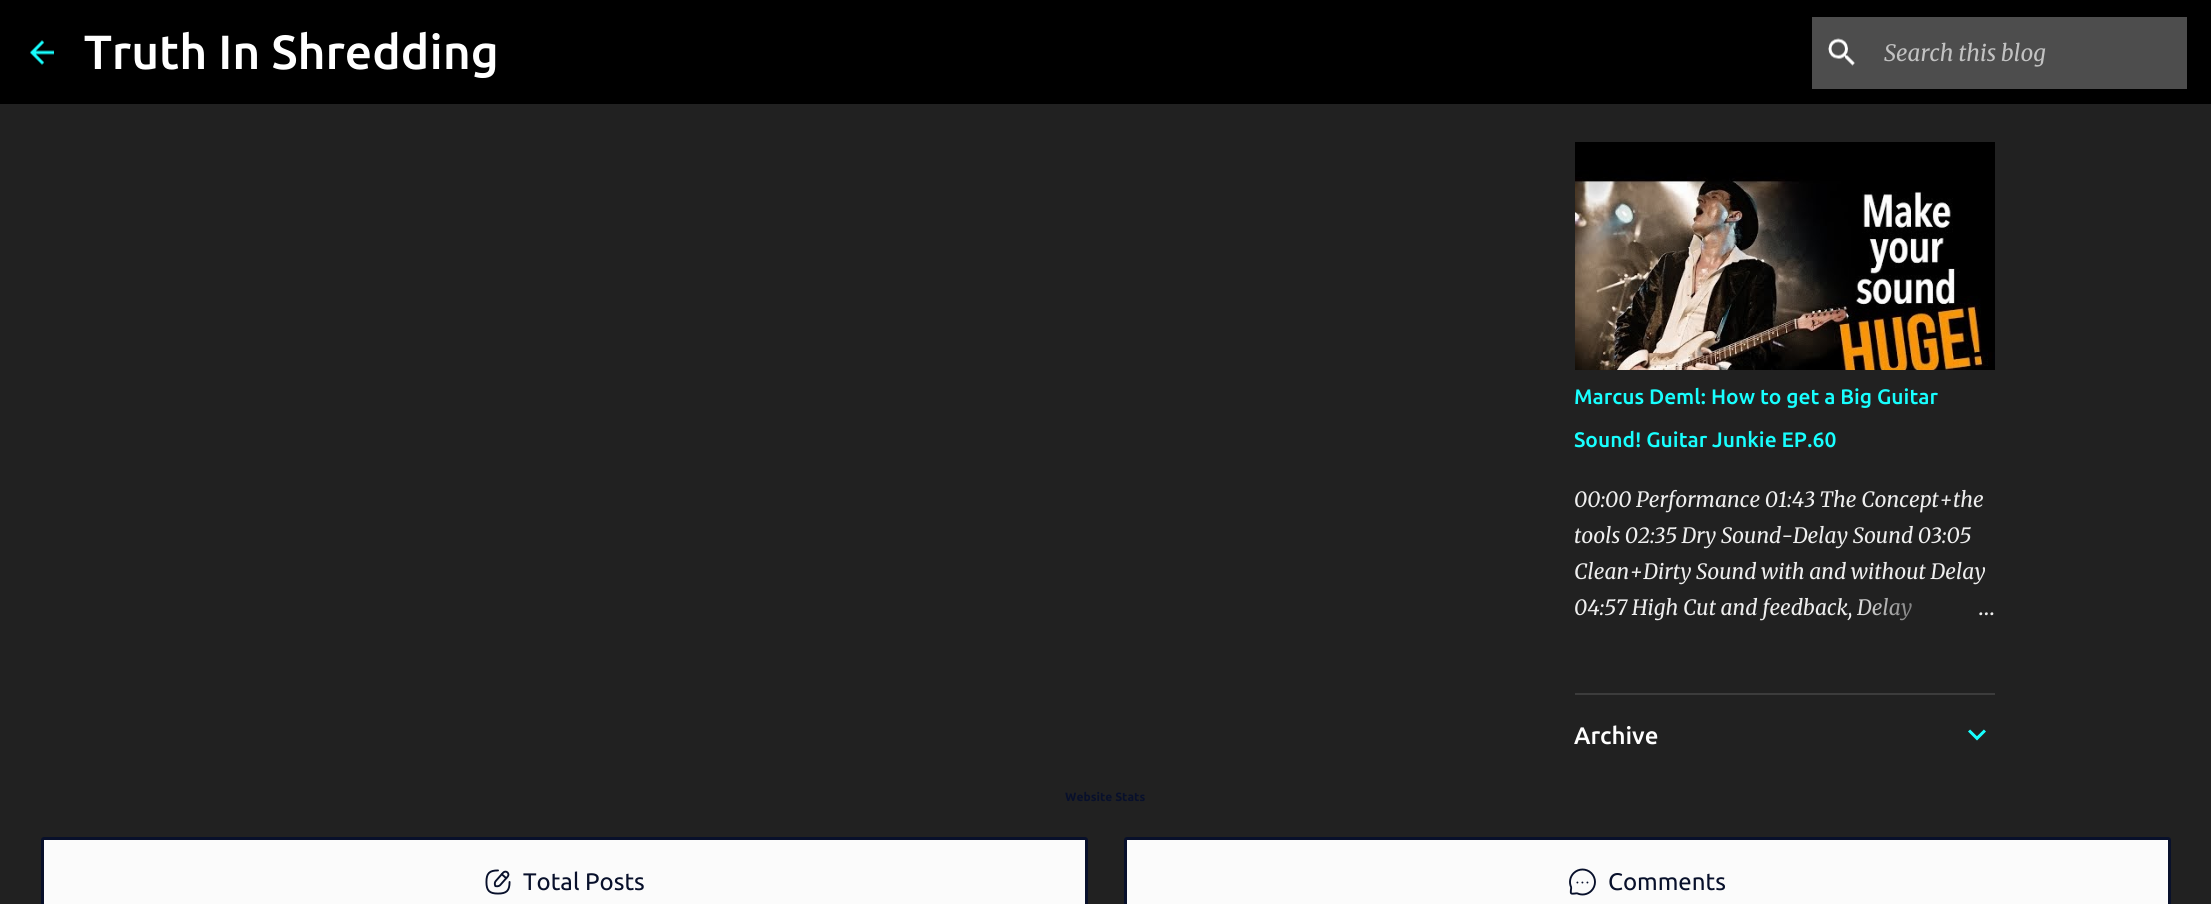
#include <cairo.h>
#include <math.h>
#include <stddef.h>

static cairo_t *ctx;

static void use_color(int r, int g, int b) {
    cairo_set_source_rgb(ctx, r / 255.0, g / 255.0, b / 255.0);
}

static void round_rect(double x, double y, double w, double h, double r) {
    cairo_new_sub_path(ctx);
    cairo_arc(ctx, x + w - r, y + h - r, r, 0, M_PI / 2);
    cairo_arc(ctx, x + r, y + h - r, r, M_PI / 2, M_PI);
    cairo_arc(ctx, x + r, y + r, r, M_PI, 1.5 * M_PI);
    cairo_arc(ctx, x + w - r, y + r, r, 1.5 * M_PI, 2 * M_PI);
    cairo_close_path(ctx);
}

static void picture(const char *path, double x, double y, double w, double h) {
    cairo_surface_t *image = cairo_image_surface_create_from_png(path);
    cairo_save(ctx);
    cairo_set_source_surface(ctx, image, x, y);
    cairo_rectangle(ctx, x, y, w, h);
    cairo_fill(ctx);
    cairo_restore(ctx);
    cairo_surface_destroy(image);
}

int main(void) {
    cairo_surface_t *surface = cairo_image_surface_create(CAIRO_FORMAT_RGB24, 2211, 904);
    ctx = cairo_create(surface);
    cairo_font_options_t *options = cairo_font_options_create();
    cairo_font_options_set_hint_metrics(options, CAIRO_HINT_METRICS_OFF);
    cairo_font_options_set_hint_style(options, CAIRO_HINT_STYLE_NONE);
    cairo_set_font_options(ctx, options);
    cairo_set_miter_limit(ctx, 4);
    cairo_pattern_t *gradient;
    use_color(33, 33, 33);
    cairo_paint(ctx);
    use_color(0, 0, 0);
    cairo_rectangle(ctx, 0, 0, 2211, 104);
    cairo_fill(ctx);
    picture("img1.png", 30, 40, 24, 25);
    cairo_select_font_face(ctx, "Ubuntu Medium", CAIRO_FONT_SLANT_NORMAL, CAIRO_FONT_WEIGHT_NORMAL);
    cairo_set_font_size(ctx, 48);
    use_color(255, 255, 255);
    cairo_move_to(ctx, 84, 69);
    cairo_show_text(ctx, "Truth In Shredding");
    use_color(77, 77, 77);
    cairo_rectangle(ctx, 1812, 17, 375, 72);
    cairo_fill(ctx);
    picture("img2.png", 1828, 38, 27, 28);
    cairo_select_font_face(ctx, "Merriweather", CAIRO_FONT_SLANT_ITALIC, CAIRO_FONT_WEIGHT_NORMAL);
    cairo_set_font_size(ctx, 22.5);
    use_color(194, 194, 194);
    cairo_move_to(ctx, 1884, 61);
    cairo_show_text(ctx, "Search this blog");
    picture("img3.png", 1575, 142, 420, 228);
    cairo_select_font_face(ctx, "Ubuntu Medium", CAIRO_FONT_SLANT_NORMAL, CAIRO_FONT_WEIGHT_NORMAL);
    cairo_set_font_size(ctx, 21);
    use_color(24, 255, 255);
    cairo_move_to(ctx, 1574, 404);
    cairo_show_text(ctx, "Marcus Deml: How to get a Big Guitar");
    cairo_move_to(ctx, 1574, 447);
    cairo_show_text(ctx, "Sound! Guitar Junkie EP.60");
    cairo_select_font_face(ctx, "Merriweather", CAIRO_FONT_SLANT_ITALIC, CAIRO_FONT_WEIGHT_NORMAL);
    use_color(238, 238, 238);
    cairo_move_to(ctx, 1574, 507);
    cairo_show_text(ctx, "00:00 Performance 01:43 The Concept+the");
    cairo_move_to(ctx, 1574, 543);
    cairo_show_text(ctx, "tools 02:35 Dry Sound-Delay Sound 03:05");
    cairo_move_to(ctx, 1574, 579);
    cairo_show_text(ctx, "Clean+Dirty Sound with and without Delay");
    cairo_move_to(ctx, 1574, 615);
    cairo_show_text(ctx, "04:57 High Cut and feedback, Delay");
    gradient = cairo_pattern_create_linear(1995, 608, 1851, 608);
    cairo_pattern_add_color_stop_rgba(gradient, 0, 0.129, 0.129, 0.129, 1);
    cairo_pattern_add_color_stop_rgba(gradient, 0.2, 0.129, 0.129, 0.129, 1);
    cairo_pattern_add_color_stop_rgba(gradient, 1, 0.129, 0.129, 0.129, 0);
    cairo_set_source(ctx, gradient);
    cairo_pattern_destroy(gradient);
    cairo_rectangle(ctx, 1857, 597, 55, 24);
    cairo_fill(ctx);
    cairo_select_font_face(ctx, "Merriweather Light", CAIRO_FONT_SLANT_NORMAL, CAIRO_FONT_WEIGHT_NORMAL);
    use_color(238, 238, 238);
    cairo_move_to(ctx, 1978, 615);
    cairo_show_text(ctx, "…");
    use_color(60, 60, 60);
    cairo_rectangle(ctx, 1575, 693, 420, 2);
    cairo_fill(ctx);
    cairo_select_font_face(ctx, "Ubuntu Medium", CAIRO_FONT_SLANT_NORMAL, CAIRO_FONT_WEIGHT_NORMAL);
    cairo_set_font_size(ctx, 24);
    use_color(255, 255, 255);
    cairo_move_to(ctx, 1574, 744);
    cairo_show_text(ctx, "Archive");
    picture("img4.png", 1968, 729, 18, 12);
    cairo_select_font_face(ctx, "Ubuntu", CAIRO_FONT_SLANT_NORMAL, CAIRO_FONT_WEIGHT_BOLD);
    cairo_set_font_size(ctx, 12);
    use_color(8, 16, 43);
    cairo_move_to(ctx, 1065, 801);
    cairo_show_text(ctx, "Website Stats");
    use_color(251, 251, 251);
    round_rect(42.5, 838.5, 1044, 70, 1.5);
    cairo_fill_preserve(ctx);
    use_color(8, 16, 43);
    cairo_set_line_width(ctx, 3);
    cairo_stroke(ctx);
    picture("img5.png", 485, 869, 26, 26);
    cairo_select_font_face(ctx, "Ubuntu", CAIRO_FONT_SLANT_NORMAL, CAIRO_FONT_WEIGHT_NORMAL);
    cairo_set_font_size(ctx, 24);
    cairo_move_to(ctx, 523, 890);
    cairo_show_text(ctx, "Total Posts");
    use_color(251, 251, 251);
    round_rect(1125.5, 838.5, 1044, 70, 1.5);
    cairo_fill_preserve(ctx);
    use_color(8, 16, 43);
    cairo_stroke(ctx);
    picture("img6.png", 1569, 868, 27, 28);
    cairo_move_to(ctx, 1608, 890);
    cairo_show_text(ctx, "Comments");
    cairo_surface_write_to_png(surface, "result.png");
    cairo_font_options_destroy(options);
    cairo_destroy(ctx);
    cairo_surface_destroy(surface);
    return 0;
}
